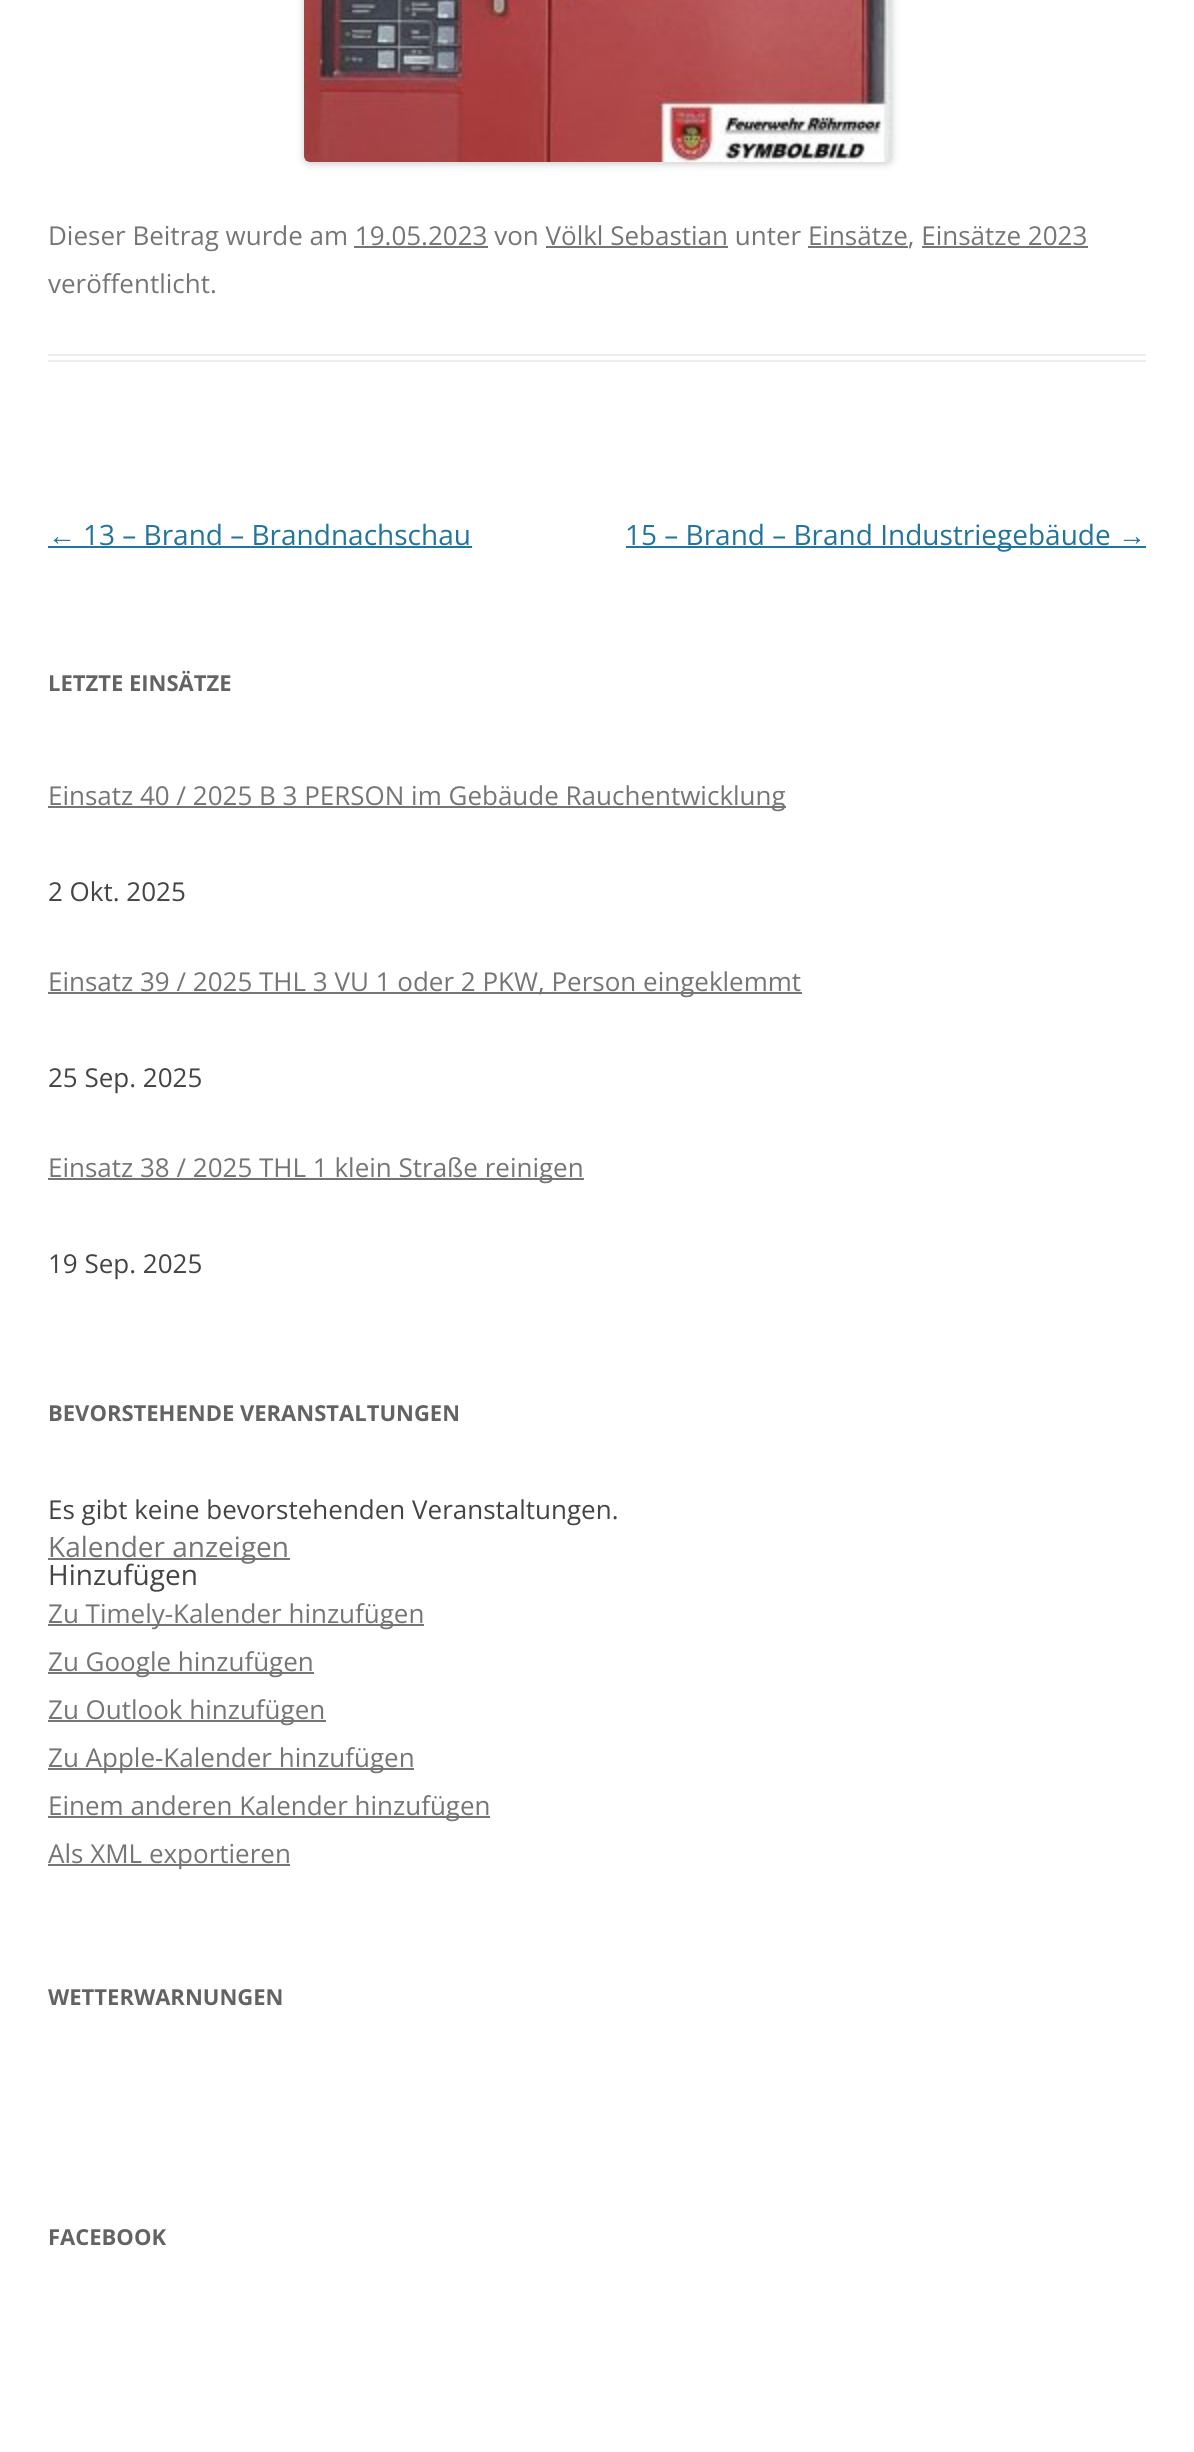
#include <cairo.h>
#include <math.h>
#include <stddef.h>

static cairo_t *ctx;

static void use_color(int r, int g, int b) {
    cairo_set_source_rgb(ctx, r / 255.0, g / 255.0, b / 255.0);
}

static void round_rect(double x, double y, double w, double h, double r) {
    cairo_new_sub_path(ctx);
    cairo_arc(ctx, x + w - r, y + h - r, r, 0, M_PI / 2);
    cairo_arc(ctx, x + r, y + h - r, r, M_PI / 2, M_PI);
    cairo_arc(ctx, x + r, y + r, r, M_PI, 1.5 * M_PI);
    cairo_arc(ctx, x + w - r, y + r, r, 1.5 * M_PI, 2 * M_PI);
    cairo_close_path(ctx);
}

static void shadow(double x, double y, double w, double h, double r, double blur, double alpha) {
    cairo_push_group_with_content(ctx, CAIRO_CONTENT_ALPHA);
    cairo_set_operator(ctx, CAIRO_OPERATOR_SOURCE);
    for (int i = 15; i >= -15 && fmin(w, h) + blur * i / 3 > 0; i -= 2) {
        double e = blur * i / 6;
        cairo_set_source_rgba(ctx, 0, 0, 0, alpha * erfc((i - 1) / 8.5) / 2);
        round_rect(x - e, y - e, w + 2 * e, h + 2 * e, fmax(0, fmin(r + e + blur * .6, fmin(w, h) / 2 + e)));
        cairo_fill(ctx);
    }
    cairo_pattern_t *soft = cairo_pop_group(ctx);
    cairo_mask(ctx, soft);
    cairo_pattern_destroy(soft);
}

static void picture(const char *path, double x, double y, double w, double h) {
    cairo_surface_t *image = cairo_image_surface_create_from_png(path);
    cairo_save(ctx);
    cairo_set_source_surface(ctx, image, x, y);
    cairo_rectangle(ctx, x, y, w, h);
    cairo_fill(ctx);
    cairo_restore(ctx);
    cairo_surface_destroy(image);
}

int main(void) {
    cairo_surface_t *surface = cairo_image_surface_create(CAIRO_FORMAT_RGB24, 1194, 2452);
    ctx = cairo_create(surface);
    cairo_font_options_t *options = cairo_font_options_create();
    cairo_font_options_set_hint_metrics(options, CAIRO_HINT_METRICS_OFF);
    cairo_font_options_set_hint_style(options, CAIRO_HINT_STYLE_NONE);
    cairo_set_font_options(ctx, options);
    cairo_set_miter_limit(ctx, 4);
    use_color(255, 255, 255);
    cairo_paint(ctx);
    use_color(237, 237, 237);
    cairo_rectangle(ctx, 48, 354, 1098, 2);
    cairo_fill(ctx);
    cairo_rectangle(ctx, 48, 360, 1098, 2);
    cairo_fill(ctx);
    use_color(0, 0, 0);
    shadow(304, -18, 588, 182, 6, 4, 0.2);
    picture("img1.png", 304, 0, 588, 162);
    cairo_select_font_face(ctx, "Open Sans", CAIRO_FONT_SLANT_NORMAL, CAIRO_FONT_WEIGHT_NORMAL);
    cairo_set_font_size(ctx, 26);
    use_color(117, 117, 117);
    cairo_move_to(ctx, 48, 245);
    cairo_show_text(ctx, "Dieser Beitrag wurde am 19.05.2023 von Völkl Sebastian unter Einsätze, Einsätze 2023");
    cairo_rectangle(ctx, 354, 246, 134, 2);
    cairo_fill(ctx);
    cairo_rectangle(ctx, 546, 246, 182, 2);
    cairo_fill(ctx);
    cairo_rectangle(ctx, 808, 246, 100, 2);
    cairo_fill(ctx);
    cairo_rectangle(ctx, 922, 246, 166, 2);
    cairo_fill(ctx);
    cairo_move_to(ctx, 48, 293);
    cairo_show_text(ctx, "veröffentlicht.");
    cairo_select_font_face(ctx, "Liberation Sans", CAIRO_FONT_SLANT_NORMAL, CAIRO_FONT_WEIGHT_NORMAL);
    cairo_set_font_size(ctx, 28);
    use_color(33, 117, 155);
    cairo_move_to(ctx, 48, 545);
    cairo_show_text(ctx, "←");
    cairo_rectangle(ctx, 48, 546, 424, 2);
    cairo_fill(ctx);
    cairo_select_font_face(ctx, "Open Sans", CAIRO_FONT_SLANT_NORMAL, CAIRO_FONT_WEIGHT_NORMAL);
    cairo_move_to(ctx, 83, 545);
    cairo_show_text(ctx, "13 – Brand – Brandnachschau");
    cairo_rectangle(ctx, 626, 546, 520, 2);
    cairo_fill(ctx);
    cairo_move_to(ctx, 625, 545);
    cairo_show_text(ctx, "15 – Brand – Brand Industriegebäude");
    cairo_select_font_face(ctx, "Liberation Sans", CAIRO_FONT_SLANT_NORMAL, CAIRO_FONT_WEIGHT_NORMAL);
    cairo_move_to(ctx, 1118, 545);
    cairo_show_text(ctx, "→");
    cairo_select_font_face(ctx, "Open Sans", CAIRO_FONT_SLANT_NORMAL, CAIRO_FONT_WEIGHT_BOLD);
    cairo_set_font_size(ctx, 22);
    use_color(99, 99, 99);
    cairo_move_to(ctx, 48, 691);
    cairo_show_text(ctx, "LETZTE EINSÄTZE");
    use_color(117, 117, 117);
    cairo_rectangle(ctx, 48, 806, 738, 2);
    cairo_fill(ctx);
    cairo_select_font_face(ctx, "Open Sans", CAIRO_FONT_SLANT_NORMAL, CAIRO_FONT_WEIGHT_NORMAL);
    cairo_set_font_size(ctx, 26);
    cairo_move_to(ctx, 48, 805);
    cairo_show_text(ctx, "Einsatz 40 / 2025 B 3 PERSON im Gebäude Rauchentwicklung");
    use_color(68, 68, 68);
    cairo_move_to(ctx, 48, 901);
    cairo_show_text(ctx, "2 Okt. 2025");
    use_color(117, 117, 117);
    cairo_rectangle(ctx, 48, 992, 754, 2);
    cairo_fill(ctx);
    cairo_move_to(ctx, 48, 991);
    cairo_show_text(ctx, "Einsatz 39 / 2025 THL 3 VU 1 oder 2 PKW, Person eingeklemmt");
    use_color(68, 68, 68);
    cairo_move_to(ctx, 48, 1087);
    cairo_show_text(ctx, "25 Sep. 2025");
    use_color(117, 117, 117);
    cairo_rectangle(ctx, 48, 1178, 536, 2);
    cairo_fill(ctx);
    cairo_move_to(ctx, 48, 1177);
    cairo_show_text(ctx, "Einsatz 38 / 2025 THL 1 klein Straße reinigen");
    use_color(68, 68, 68);
    cairo_move_to(ctx, 48, 1273);
    cairo_show_text(ctx, "19 Sep. 2025");
    cairo_select_font_face(ctx, "Open Sans", CAIRO_FONT_SLANT_NORMAL, CAIRO_FONT_WEIGHT_BOLD);
    cairo_set_font_size(ctx, 22);
    use_color(99, 99, 99);
    cairo_move_to(ctx, 48, 1421);
    cairo_show_text(ctx, "BEVORSTEHENDE VERANSTALTUNGEN");
    cairo_select_font_face(ctx, "Open Sans", CAIRO_FONT_SLANT_NORMAL, CAIRO_FONT_WEIGHT_NORMAL);
    cairo_set_font_size(ctx, 26);
    use_color(68, 68, 68);
    cairo_move_to(ctx, 48, 1519);
    cairo_show_text(ctx, "Es gibt keine bevorstehenden Veranstaltungen.");
    use_color(117, 117, 117);
    cairo_rectangle(ctx, 48, 1558, 242, 2);
    cairo_fill(ctx);
    cairo_set_font_size(ctx, 28);
    cairo_move_to(ctx, 48, 1557);
    cairo_show_text(ctx, "Kalender anzeigen");
    use_color(68, 68, 68);
    cairo_move_to(ctx, 48, 1585);
    cairo_show_text(ctx, "Hinzufügen");
    use_color(117, 117, 117);
    cairo_rectangle(ctx, 48, 1624, 376, 2);
    cairo_fill(ctx);
    cairo_set_font_size(ctx, 26);
    cairo_move_to(ctx, 48, 1623);
    cairo_show_text(ctx, "Zu Timely-Kalender hinzufügen");
    cairo_rectangle(ctx, 48, 1672, 266, 2);
    cairo_fill(ctx);
    cairo_move_to(ctx, 48, 1671);
    cairo_show_text(ctx, "Zu Google hinzufügen");
    cairo_rectangle(ctx, 48, 1720, 278, 2);
    cairo_fill(ctx);
    cairo_move_to(ctx, 48, 1719);
    cairo_show_text(ctx, "Zu Outlook hinzufügen");
    cairo_rectangle(ctx, 48, 1768, 366, 2);
    cairo_fill(ctx);
    cairo_move_to(ctx, 48, 1767);
    cairo_show_text(ctx, "Zu Apple-Kalender hinzufügen");
    cairo_rectangle(ctx, 48, 1816, 442, 2);
    cairo_fill(ctx);
    cairo_move_to(ctx, 48, 1815);
    cairo_show_text(ctx, "Einem anderen Kalender hinzufügen");
    cairo_rectangle(ctx, 48, 1864, 242, 2);
    cairo_fill(ctx);
    cairo_move_to(ctx, 48, 1863);
    cairo_show_text(ctx, "Als XML exportieren");
    cairo_select_font_face(ctx, "Open Sans", CAIRO_FONT_SLANT_NORMAL, CAIRO_FONT_WEIGHT_BOLD);
    cairo_set_font_size(ctx, 22);
    use_color(99, 99, 99);
    cairo_move_to(ctx, 48, 2005);
    cairo_show_text(ctx, "WETTERWARNUNGEN");
    cairo_move_to(ctx, 48, 2245);
    cairo_show_text(ctx, "FACEBOOK");
    cairo_surface_write_to_png(surface, "result.png");
    cairo_font_options_destroy(options);
    cairo_destroy(ctx);
    cairo_surface_destroy(surface);
    return 0;
}
